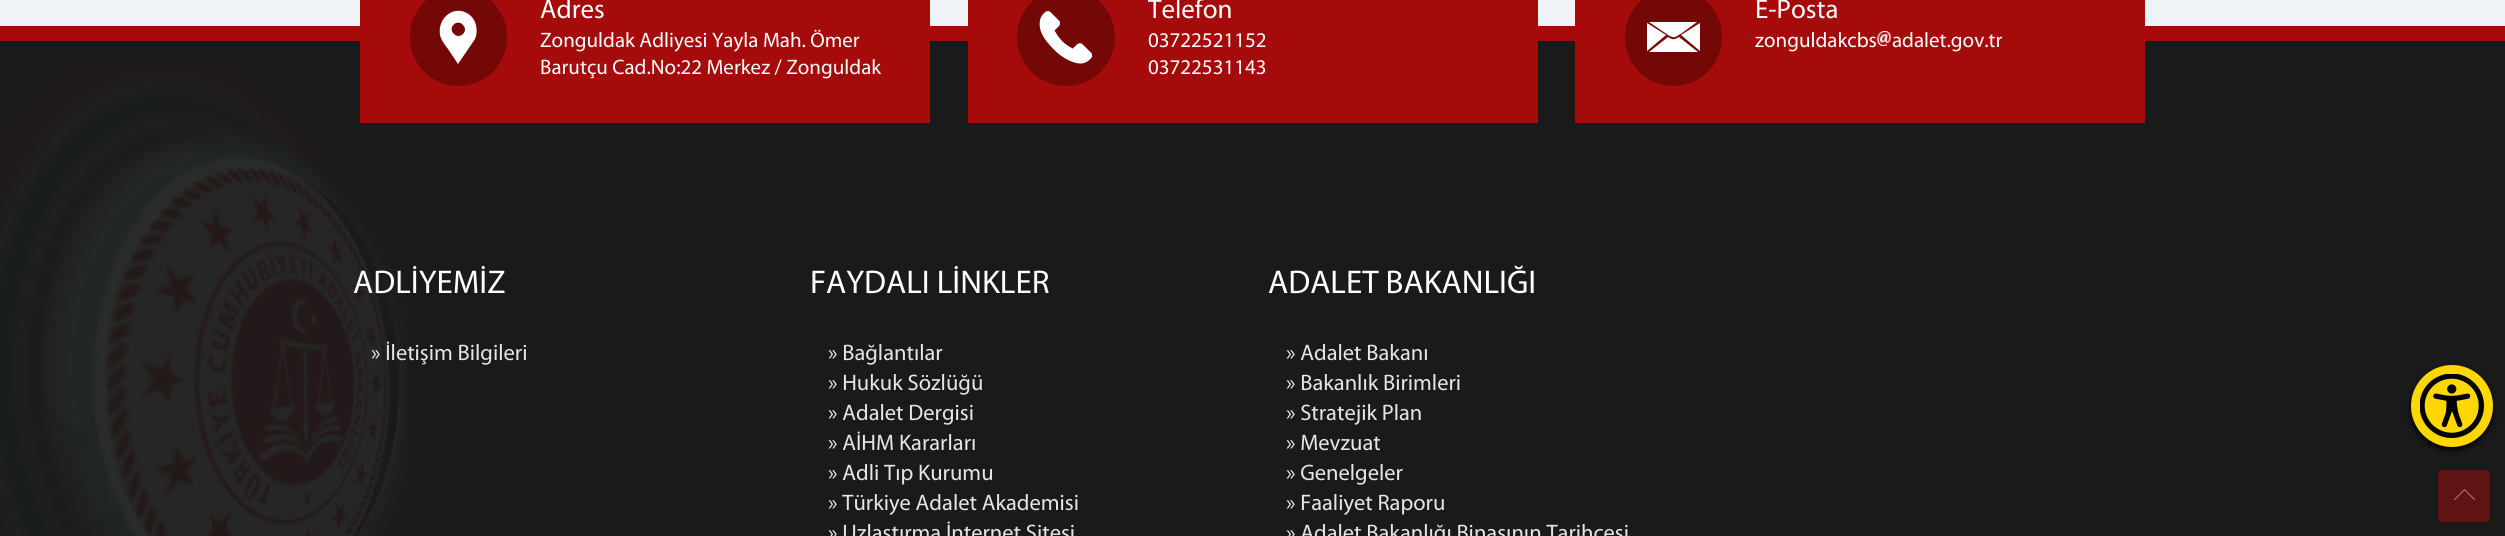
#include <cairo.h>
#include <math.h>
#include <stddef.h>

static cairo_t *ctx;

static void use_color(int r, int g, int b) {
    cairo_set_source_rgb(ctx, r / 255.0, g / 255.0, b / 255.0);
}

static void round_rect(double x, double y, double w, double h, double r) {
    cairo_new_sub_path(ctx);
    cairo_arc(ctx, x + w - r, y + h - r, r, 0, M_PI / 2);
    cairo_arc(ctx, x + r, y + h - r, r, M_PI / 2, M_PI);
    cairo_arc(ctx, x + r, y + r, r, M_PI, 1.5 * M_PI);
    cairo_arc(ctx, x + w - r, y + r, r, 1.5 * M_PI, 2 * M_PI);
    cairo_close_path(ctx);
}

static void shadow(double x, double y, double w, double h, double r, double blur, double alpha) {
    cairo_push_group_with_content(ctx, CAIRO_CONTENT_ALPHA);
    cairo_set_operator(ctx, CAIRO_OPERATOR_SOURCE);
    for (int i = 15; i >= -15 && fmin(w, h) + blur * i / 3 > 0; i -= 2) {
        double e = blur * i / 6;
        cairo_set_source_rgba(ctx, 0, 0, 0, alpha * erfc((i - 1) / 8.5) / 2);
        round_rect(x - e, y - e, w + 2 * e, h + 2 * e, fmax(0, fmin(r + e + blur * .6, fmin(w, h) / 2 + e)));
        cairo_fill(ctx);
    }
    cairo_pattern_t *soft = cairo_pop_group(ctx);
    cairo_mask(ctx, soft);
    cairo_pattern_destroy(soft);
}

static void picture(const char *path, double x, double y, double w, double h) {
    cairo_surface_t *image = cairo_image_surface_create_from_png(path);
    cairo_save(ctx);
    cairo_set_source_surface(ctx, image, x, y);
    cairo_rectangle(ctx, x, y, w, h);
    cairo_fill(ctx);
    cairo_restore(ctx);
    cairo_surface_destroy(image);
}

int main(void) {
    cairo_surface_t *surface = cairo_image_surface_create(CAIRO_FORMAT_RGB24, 2505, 536);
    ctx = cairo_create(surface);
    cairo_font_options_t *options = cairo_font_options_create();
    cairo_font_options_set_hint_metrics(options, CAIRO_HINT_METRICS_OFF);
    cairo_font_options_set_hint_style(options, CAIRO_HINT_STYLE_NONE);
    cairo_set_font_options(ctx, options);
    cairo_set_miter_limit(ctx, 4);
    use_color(239, 243, 246);
    cairo_paint(ctx);
    use_color(26, 26, 26);
    cairo_rectangle(ctx, 0, 41, 2505, 495);
    cairo_fill(ctx);
    use_color(164, 11, 10);
    cairo_rectangle(ctx, 0, 26, 2505, 15);
    cairo_fill(ctx);
    picture("img3.png", 0, 58, 408, 478);
    cairo_rectangle(ctx, 360, 0, 570, 123);
    cairo_fill(ctx);
    use_color(115, 8, 7);
    round_rect(410, -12, 97, 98, 48.5);
    cairo_fill(ctx);
    use_color(255, 255, 255);
    cairo_new_path(ctx);
    cairo_move_to(ctx, 471, 16);
    cairo_curve_to(ctx, 477, 22, 478, 32, 475, 39);
    cairo_line_to(ctx, 458, 64);
    cairo_line_to(ctx, 448, 49);
    cairo_curve_to(ctx, 445, 45, 441, 40, 440, 35);
    cairo_curve_to(ctx, 437, 16, 457, 3, 471, 16);
    cairo_close_path(ctx);
    cairo_move_to(ctx, 454, 34);
    cairo_curve_to(ctx, 460, 40, 469, 31, 463, 25);
    cairo_curve_to(ctx, 457, 18, 447, 28, 454, 34);
    cairo_close_path(ctx);
    cairo_fill(ctx);
    cairo_select_font_face(ctx, "Myriad", CAIRO_FONT_SLANT_NORMAL, CAIRO_FONT_WEIGHT_NORMAL);
    cairo_set_font_size(ctx, 27);
    cairo_move_to(ctx, 540, 18);
    cairo_show_text(ctx, "Adres");
    cairo_set_font_size(ctx, 21);
    cairo_move_to(ctx, 540, 47);
    cairo_show_text(ctx, "Zonguldak Adliyesi Yayla Mah. Ömer");
    cairo_move_to(ctx, 540, 74);
    cairo_show_text(ctx, "Barutçu Cad.No:22 Merkez / Zonguldak");
    use_color(164, 11, 10);
    cairo_rectangle(ctx, 968, 0, 570, 123);
    cairo_fill(ctx);
    use_color(115, 8, 7);
    cairo_arc(ctx, 1066, 37, 49, 0, 2 * M_PI);
    cairo_fill(ctx);
    picture("img1.png", 1039, 11, 54, 53);
    cairo_set_font_size(ctx, 27);
    use_color(255, 255, 255);
    cairo_move_to(ctx, 1148, 18);
    cairo_show_text(ctx, "Telefon");
    cairo_set_font_size(ctx, 21);
    cairo_move_to(ctx, 1148, 47);
    cairo_show_text(ctx, "03722521152");
    cairo_move_to(ctx, 1148, 74);
    cairo_show_text(ctx, "03722531143");
    use_color(164, 11, 10);
    cairo_rectangle(ctx, 1575, 0, 570, 123);
    cairo_fill(ctx);
    use_color(115, 8, 7);
    round_rect(1625, -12, 97, 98, 48.5);
    cairo_fill(ctx);
    use_color(255, 255, 255);
    cairo_new_path(ctx);
    cairo_move_to(ctx, 1679, 37);
    cairo_line_to(ctx, 1698, 52);
    cairo_line_to(ctx, 1649, 52);
    cairo_line_to(ctx, 1668, 37);
    cairo_curve_to(ctx, 1673, 40, 1674, 40, 1679, 37);
    cairo_close_path(ctx);
    cairo_move_to(ctx, 1681, 35);
    cairo_line_to(ctx, 1700, 23);
    cairo_line_to(ctx, 1700, 51);
    cairo_close_path(ctx);
    cairo_move_to(ctx, 1647, 23);
    cairo_line_to(ctx, 1666, 35);
    cairo_line_to(ctx, 1647, 51);
    cairo_close_path(ctx);
    cairo_move_to(ctx, 1649, 22);
    cairo_line_to(ctx, 1697, 22);
    cairo_line_to(ctx, 1682, 33);
    cairo_curve_to(ctx, 1675, 37, 1675, 39, 1668, 35);
    cairo_close_path(ctx);
    cairo_fill(ctx);
    cairo_set_font_size(ctx, 27);
    cairo_move_to(ctx, 1755, 18);
    cairo_show_text(ctx, "E-Posta");
    cairo_set_font_size(ctx, 21);
    cairo_move_to(ctx, 1755, 47);
    cairo_show_text(ctx, "zonguldakcbs");
    picture("img2.png", 1876, 31, 16, 15);
    cairo_move_to(ctx, 1892, 47);
    cairo_show_text(ctx, "adalet.gov.tr");
    cairo_set_font_size(ctx, 33);
    cairo_move_to(ctx, 353, 293);
    cairo_show_text(ctx, "ADLİYEMİZ");
    cairo_set_font_size(ctx, 22.5);
    use_color(229, 229, 229);
    cairo_move_to(ctx, 371, 360);
    cairo_show_text(ctx, "» İletişim Bilgileri");
    cairo_set_font_size(ctx, 33);
    use_color(255, 255, 255);
    cairo_move_to(ctx, 810, 293);
    cairo_show_text(ctx, "FAYDALI LİNKLER");
    cairo_set_font_size(ctx, 22.5);
    use_color(229, 229, 229);
    cairo_move_to(ctx, 828, 360);
    cairo_show_text(ctx, "» Bağlantılar");
    cairo_move_to(ctx, 828, 390);
    cairo_show_text(ctx, "» Hukuk Sözlüğü");
    cairo_move_to(ctx, 828, 420);
    cairo_show_text(ctx, "» Adalet Dergisi");
    cairo_move_to(ctx, 828, 450);
    cairo_show_text(ctx, "» AİHM Kararları");
    cairo_move_to(ctx, 828, 480);
    cairo_show_text(ctx, "» Adli Tıp Kurumu");
    cairo_move_to(ctx, 828, 510);
    cairo_show_text(ctx, "» Türkiye Adalet Akademisi");
    cairo_move_to(ctx, 828, 540);
    cairo_show_text(ctx, "» Uzlaştırma İnternet Sitesi");
    cairo_set_font_size(ctx, 33);
    use_color(255, 255, 255);
    cairo_move_to(ctx, 1268, 293);
    cairo_show_text(ctx, "ADALET BAKANLIĞI");
    cairo_set_font_size(ctx, 22.5);
    use_color(229, 229, 229);
    cairo_move_to(ctx, 1286, 360);
    cairo_show_text(ctx, "» Adalet Bakanı");
    cairo_move_to(ctx, 1286, 390);
    cairo_show_text(ctx, "» Bakanlık Birimleri");
    cairo_move_to(ctx, 1286, 420);
    cairo_show_text(ctx, "» Stratejik Plan");
    cairo_move_to(ctx, 1286, 450);
    cairo_show_text(ctx, "» Mevzuat");
    cairo_move_to(ctx, 1286, 480);
    cairo_show_text(ctx, "» Genelgeler");
    cairo_move_to(ctx, 1286, 510);
    cairo_show_text(ctx, "» Faaliyet Raporu");
    cairo_move_to(ctx, 1286, 540);
    cairo_show_text(ctx, "» Adalet Bakanlığı Binasının Tarihçesi");
    use_color(0, 0, 0);
    shadow(2411, 368, 82, 82, 41, 3, 1);
    use_color(255, 215, 0);
    cairo_arc(ctx, 2452, 406, 41, 0, 2 * M_PI);
    cairo_fill(ctx);
    picture("img4.png", 2420, 374, 64, 64);
    use_color(95, 19, 18);
    round_rect(2438, 470, 52, 52, 3);
    cairo_fill(ctx);
    picture("img5.png", 2454, 489, 21, 11);
    cairo_surface_write_to_png(surface, "result.png");
    cairo_font_options_destroy(options);
    cairo_destroy(ctx);
    cairo_surface_destroy(surface);
    return 0;
}
